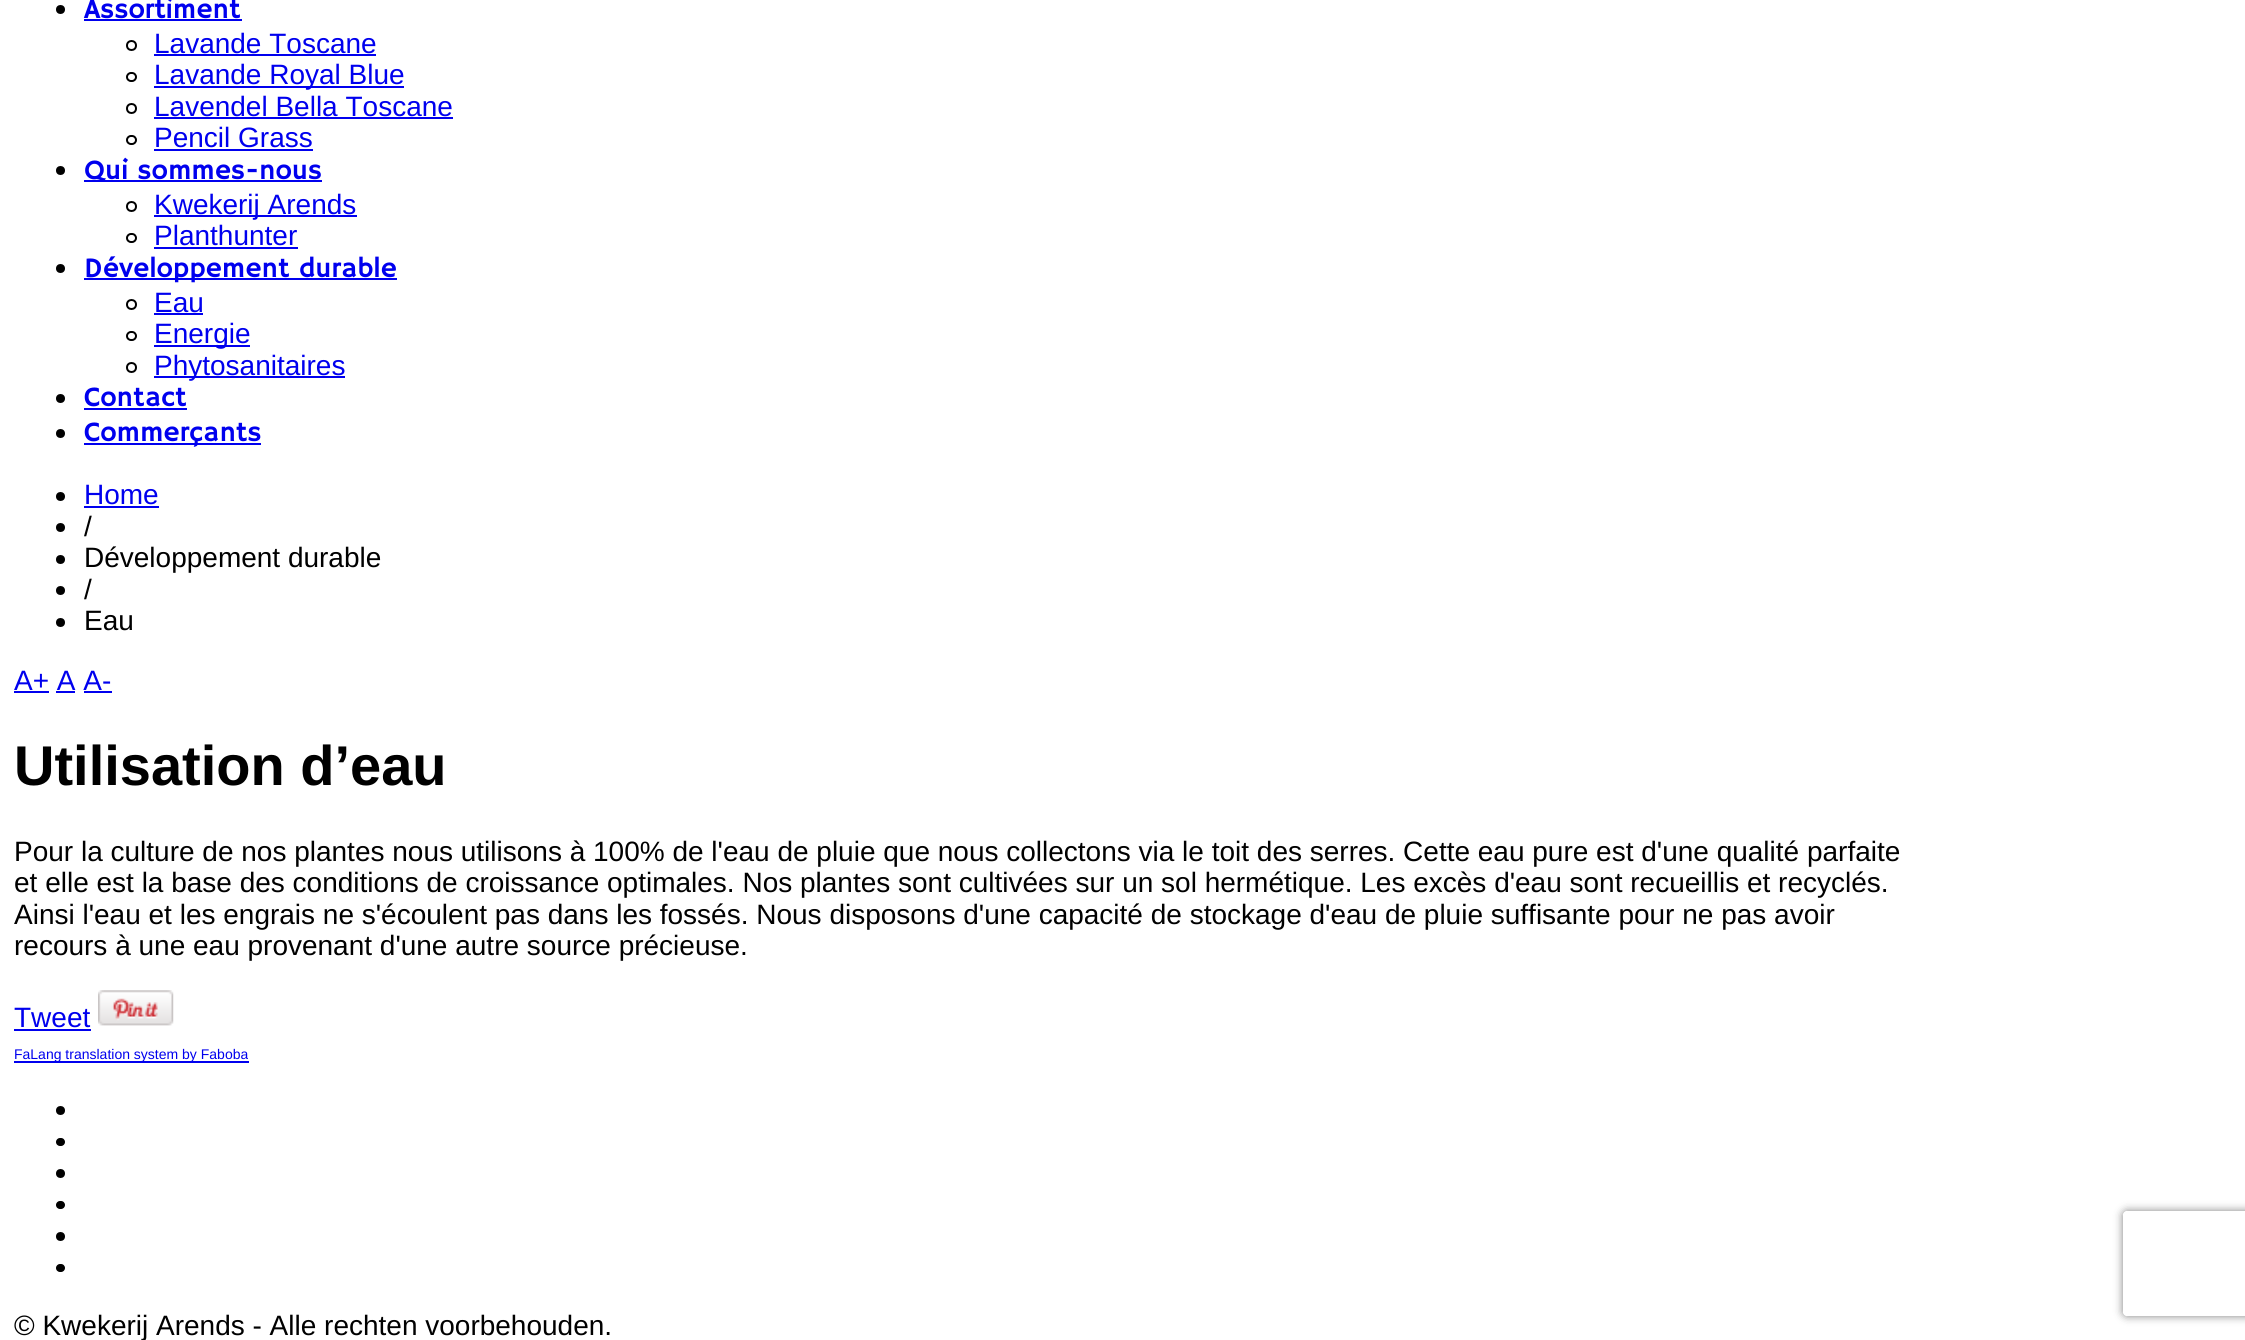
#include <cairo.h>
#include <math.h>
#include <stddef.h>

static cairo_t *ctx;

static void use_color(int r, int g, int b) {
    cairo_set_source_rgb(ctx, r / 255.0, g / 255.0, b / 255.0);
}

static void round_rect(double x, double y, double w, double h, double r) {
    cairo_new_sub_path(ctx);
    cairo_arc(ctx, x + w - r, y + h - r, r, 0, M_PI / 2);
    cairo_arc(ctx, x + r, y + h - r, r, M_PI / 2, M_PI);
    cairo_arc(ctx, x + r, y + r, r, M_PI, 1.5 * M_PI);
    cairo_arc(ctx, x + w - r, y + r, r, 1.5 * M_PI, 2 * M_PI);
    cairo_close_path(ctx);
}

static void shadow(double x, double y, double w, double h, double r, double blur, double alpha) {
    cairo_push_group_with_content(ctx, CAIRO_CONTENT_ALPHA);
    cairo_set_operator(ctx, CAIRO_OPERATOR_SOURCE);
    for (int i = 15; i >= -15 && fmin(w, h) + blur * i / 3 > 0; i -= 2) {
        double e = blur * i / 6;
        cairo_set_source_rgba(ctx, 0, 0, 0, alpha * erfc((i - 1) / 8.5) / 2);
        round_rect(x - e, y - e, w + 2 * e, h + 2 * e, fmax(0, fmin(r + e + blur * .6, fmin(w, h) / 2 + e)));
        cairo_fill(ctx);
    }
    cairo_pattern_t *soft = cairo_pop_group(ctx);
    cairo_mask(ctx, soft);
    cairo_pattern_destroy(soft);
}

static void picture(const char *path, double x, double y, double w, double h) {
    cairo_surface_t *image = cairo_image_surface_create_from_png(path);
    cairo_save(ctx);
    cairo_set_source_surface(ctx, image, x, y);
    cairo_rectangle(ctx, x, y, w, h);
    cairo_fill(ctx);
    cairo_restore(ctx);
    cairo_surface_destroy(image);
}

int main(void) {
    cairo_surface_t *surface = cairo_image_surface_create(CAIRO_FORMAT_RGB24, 2245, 1340);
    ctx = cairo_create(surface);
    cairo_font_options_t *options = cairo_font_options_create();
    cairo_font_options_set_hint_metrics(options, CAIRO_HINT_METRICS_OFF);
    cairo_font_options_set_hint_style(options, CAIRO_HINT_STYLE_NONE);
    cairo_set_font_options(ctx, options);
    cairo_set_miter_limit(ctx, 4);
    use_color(255, 255, 255);
    cairo_paint(ctx);
    use_color(0, 0, 0);
    cairo_arc(ctx, 60.5, 9.5, 4.5, 0, 2 * M_PI);
    cairo_fill(ctx);
    cairo_select_font_face(ctx, "Hammersmith One", CAIRO_FONT_SLANT_NORMAL, CAIRO_FONT_WEIGHT_NORMAL);
    cairo_set_font_size(ctx, 28);
    use_color(0, 0, 238);
    cairo_move_to(ctx, 84, 18);
    cairo_show_text(ctx, "Assortiment");
    cairo_rectangle(ctx, 84, 19, 158, 2);
    cairo_fill(ctx);
    cairo_arc(ctx, 131.5, 45.5, 4.5, 0, 2 * M_PI);
    use_color(0, 0, 0);
    cairo_stroke(ctx);
    cairo_select_font_face(ctx, "Liberation Sans", CAIRO_FONT_SLANT_NORMAL, CAIRO_FONT_WEIGHT_NORMAL);
    use_color(0, 0, 238);
    cairo_move_to(ctx, 154, 53);
    cairo_show_text(ctx, "Lavande Toscane");
    cairo_rectangle(ctx, 154, 54, 222, 2);
    cairo_fill(ctx);
    round_rect(127, 73, 9, 8, 4);
    use_color(0, 0, 0);
    cairo_stroke(ctx);
    use_color(0, 0, 238);
    cairo_rectangle(ctx, 154, 86, 250, 2);
    cairo_fill(ctx);
    cairo_move_to(ctx, 154, 84);
    cairo_show_text(ctx, "Lavande Royal Blue");
    cairo_new_path(ctx);
    cairo_arc(ctx, 131.5, 108.5, 4.5, 0, 2 * M_PI);
    use_color(0, 0, 0);
    cairo_stroke(ctx);
    use_color(0, 0, 238);
    cairo_move_to(ctx, 154, 116);
    cairo_show_text(ctx, "Lavendel Bella Toscane");
    cairo_rectangle(ctx, 154, 117, 299, 2);
    cairo_fill(ctx);
    round_rect(127, 136, 9, 8, 4);
    use_color(0, 0, 0);
    cairo_stroke(ctx);
    use_color(0, 0, 238);
    cairo_move_to(ctx, 154, 147);
    cairo_show_text(ctx, "Pencil Grass");
    cairo_rectangle(ctx, 154, 149, 159, 2);
    cairo_fill(ctx);
    use_color(0, 0, 0);
    cairo_arc(ctx, 60.5, 170.5, 4.5, 0, 2 * M_PI);
    cairo_fill(ctx);
    use_color(0, 0, 238);
    cairo_rectangle(ctx, 84, 180, 238, 2);
    cairo_fill(ctx);
    cairo_select_font_face(ctx, "Hammersmith One", CAIRO_FONT_SLANT_NORMAL, CAIRO_FONT_WEIGHT_NORMAL);
    cairo_move_to(ctx, 84, 179);
    cairo_show_text(ctx, "Qui sommes-nous");
    cairo_new_path(ctx);
    cairo_arc(ctx, 131.5, 206.5, 4.5, 0, 2 * M_PI);
    use_color(0, 0, 0);
    cairo_stroke(ctx);
    use_color(0, 0, 238);
    cairo_rectangle(ctx, 154, 215, 203, 2);
    cairo_fill(ctx);
    cairo_select_font_face(ctx, "Liberation Sans", CAIRO_FONT_SLANT_NORMAL, CAIRO_FONT_WEIGHT_NORMAL);
    cairo_move_to(ctx, 154, 214);
    cairo_show_text(ctx, "Kwekerij Arends");
    round_rect(127, 234, 9, 8, 4);
    use_color(0, 0, 0);
    cairo_stroke(ctx);
    use_color(0, 0, 238);
    cairo_move_to(ctx, 154, 245);
    cairo_show_text(ctx, "Planthunter");
    cairo_rectangle(ctx, 154, 247, 144, 2);
    cairo_fill(ctx);
    use_color(0, 0, 0);
    cairo_arc(ctx, 60.5, 268.5, 4.5, 0, 2 * M_PI);
    cairo_fill(ctx);
    use_color(0, 0, 238);
    cairo_rectangle(ctx, 84, 278, 313, 2);
    cairo_fill(ctx);
    cairo_select_font_face(ctx, "Hammersmith One", CAIRO_FONT_SLANT_NORMAL, CAIRO_FONT_WEIGHT_NORMAL);
    cairo_move_to(ctx, 84, 277);
    cairo_show_text(ctx, "Développement durable");
    cairo_new_path(ctx);
    cairo_arc(ctx, 131.5, 304.5, 4.5, 0, 2 * M_PI);
    use_color(0, 0, 0);
    cairo_stroke(ctx);
    cairo_select_font_face(ctx, "Liberation Sans", CAIRO_FONT_SLANT_NORMAL, CAIRO_FONT_WEIGHT_NORMAL);
    use_color(0, 0, 238);
    cairo_move_to(ctx, 154, 312);
    cairo_show_text(ctx, "Eau");
    cairo_rectangle(ctx, 154, 313, 49, 2);
    cairo_fill(ctx);
    round_rect(127, 332, 9, 8, 4);
    use_color(0, 0, 0);
    cairo_stroke(ctx);
    use_color(0, 0, 238);
    cairo_rectangle(ctx, 154, 345, 96, 2);
    cairo_fill(ctx);
    cairo_move_to(ctx, 154, 343);
    cairo_show_text(ctx, "Energie");
    cairo_new_path(ctx);
    cairo_arc(ctx, 131.5, 367.5, 4.5, 0, 2 * M_PI);
    use_color(0, 0, 0);
    cairo_stroke(ctx);
    use_color(0, 0, 238);
    cairo_rectangle(ctx, 154, 376, 191, 2);
    cairo_fill(ctx);
    cairo_move_to(ctx, 154, 375);
    cairo_show_text(ctx, "Phytosanitaires");
    use_color(0, 0, 0);
    cairo_new_path(ctx);
    cairo_arc(ctx, 60.5, 398.5, 4.5, 0, 2 * M_PI);
    cairo_fill(ctx);
    cairo_select_font_face(ctx, "Hammersmith One", CAIRO_FONT_SLANT_NORMAL, CAIRO_FONT_WEIGHT_NORMAL);
    use_color(0, 0, 238);
    cairo_move_to(ctx, 84, 406);
    cairo_show_text(ctx, "Contact");
    cairo_rectangle(ctx, 84, 408, 103, 2);
    cairo_fill(ctx);
    use_color(0, 0, 0);
    cairo_arc(ctx, 60.5, 433.5, 4.5, 0, 2 * M_PI);
    cairo_fill(ctx);
    use_color(0, 0, 238);
    cairo_rectangle(ctx, 84, 443, 177, 2);
    cairo_fill(ctx);
    cairo_move_to(ctx, 84, 441);
    cairo_show_text(ctx, "Commerçants");
    use_color(0, 0, 0);
    cairo_new_path(ctx);
    cairo_arc(ctx, 60.5, 496.5, 4.5, 0, 2 * M_PI);
    cairo_fill(ctx);
    cairo_select_font_face(ctx, "Liberation Sans", CAIRO_FONT_SLANT_NORMAL, CAIRO_FONT_WEIGHT_NORMAL);
    use_color(0, 0, 238);
    cairo_move_to(ctx, 84, 504);
    cairo_show_text(ctx, "Home");
    cairo_rectangle(ctx, 84, 506, 75, 2);
    cairo_fill(ctx);
    use_color(0, 0, 0);
    cairo_arc(ctx, 60.5, 527.5, 4.5, 0, 2 * M_PI);
    cairo_fill(ctx);
    cairo_move_to(ctx, 84, 536);
    cairo_show_text(ctx, "/");
    cairo_new_path(ctx);
    cairo_arc(ctx, 60.5, 559.5, 4.5, 0, 2 * M_PI);
    cairo_fill(ctx);
    cairo_move_to(ctx, 84, 567);
    cairo_show_text(ctx, "Développement durable");
    cairo_new_path(ctx);
    cairo_arc(ctx, 60.5, 590.5, 4.5, 0, 2 * M_PI);
    cairo_fill(ctx);
    cairo_move_to(ctx, 84, 599);
    cairo_show_text(ctx, "/");
    cairo_new_path(ctx);
    cairo_arc(ctx, 60.5, 622.5, 4.5, 0, 2 * M_PI);
    cairo_fill(ctx);
    cairo_move_to(ctx, 84, 630);
    cairo_show_text(ctx, "Eau");
    use_color(0, 0, 238);
    cairo_move_to(ctx, 14, 690);
    cairo_show_text(ctx, "A+ A A-");
    cairo_rectangle(ctx, 14, 691, 35, 2);
    cairo_fill(ctx);
    cairo_rectangle(ctx, 56, 691, 19, 2);
    cairo_fill(ctx);
    cairo_rectangle(ctx, 84, 691, 28, 2);
    cairo_fill(ctx);
    cairo_select_font_face(ctx, "Liberation Sans", CAIRO_FONT_SLANT_NORMAL, CAIRO_FONT_WEIGHT_BOLD);
    cairo_set_font_size(ctx, 56);
    use_color(0, 0, 0);
    cairo_move_to(ctx, 14, 785);
    cairo_show_text(ctx, "Utilisation d’eau");
    cairo_select_font_face(ctx, "Liberation Sans", CAIRO_FONT_SLANT_NORMAL, CAIRO_FONT_WEIGHT_NORMAL);
    cairo_set_font_size(ctx, 28);
    cairo_move_to(ctx, 14, 861);
    cairo_show_text(ctx, "Pour la culture de nos plantes nous utilisons à 100% de l'eau de pluie que nous collectons via le toit des serres. Cette eau pure est d'une qualité parfaite");
    cairo_move_to(ctx, 14, 892);
    cairo_show_text(ctx, "et elle est la base des conditions de croissance optimales. Nos plantes sont cultivées sur un sol hermétique. Les excès d'eau sont recueillis et recyclés.");
    cairo_move_to(ctx, 14, 924);
    cairo_show_text(ctx, "Ainsi l'eau et les engrais ne s'écoulent pas dans les fossés. Nous disposons d'une capacité de stockage d'eau de pluie suffisante pour ne pas avoir");
    cairo_move_to(ctx, 14, 955);
    cairo_show_text(ctx, "recours à une eau provenant d'une autre source précieuse.");
    use_color(0, 0, 238);
    cairo_move_to(ctx, 14, 1027);
    cairo_show_text(ctx, "Tweet");
    cairo_rectangle(ctx, 14, 1029, 77, 2);
    cairo_fill(ctx);
    picture("img1.png", 98, 990, 76, 36);
    cairo_rectangle(ctx, 14, 1061, 235, 2);
    cairo_fill(ctx);
    cairo_set_font_size(ctx, 14);
    cairo_move_to(ctx, 14, 1059);
    cairo_show_text(ctx, "FaLang translation system by Faboba");
    use_color(0, 0, 0);
    cairo_new_path(ctx);
    cairo_arc(ctx, 60.5, 1110.5, 4.5, 0, 2 * M_PI);
    cairo_fill(ctx);
    round_rect(56, 1138, 9, 8, 4);
    cairo_fill(ctx);
    cairo_arc(ctx, 60.5, 1173.5, 4.5, 0, 2 * M_PI);
    cairo_fill(ctx);
    round_rect(56, 1201, 9, 8, 4);
    cairo_fill(ctx);
    cairo_arc(ctx, 60.5, 1236.5, 4.5, 0, 2 * M_PI);
    cairo_fill(ctx);
    round_rect(56, 1264, 9, 8, 4);
    cairo_fill(ctx);
    cairo_save(ctx);
    cairo_set_fill_rule(ctx, CAIRO_FILL_RULE_EVEN_ODD);
    cairo_new_path(ctx);
    cairo_move_to(ctx, 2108, 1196);
    cairo_line_to(ctx, 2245, 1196);
    cairo_line_to(ctx, 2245, 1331);
    cairo_line_to(ctx, 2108, 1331);
    cairo_close_path(ctx);
    cairo_move_to(ctx, 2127, 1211);
    cairo_line_to(ctx, 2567, 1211);
    cairo_curve_to(ctx, 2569, 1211, 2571, 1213, 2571, 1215);
    cairo_line_to(ctx, 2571, 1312);
    cairo_curve_to(ctx, 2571, 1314, 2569, 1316, 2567, 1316);
    cairo_line_to(ctx, 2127, 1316);
    cairo_curve_to(ctx, 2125, 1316, 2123, 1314, 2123, 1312);
    cairo_line_to(ctx, 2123, 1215);
    cairo_curve_to(ctx, 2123, 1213, 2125, 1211, 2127, 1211);
    cairo_close_path(ctx);
    cairo_clip(ctx);
    use_color(128, 128, 128);
    shadow(2123, 1211, 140, 105, 4, 4.5, 1);
    cairo_restore(ctx);
    cairo_set_font_size(ctx, 28);
    cairo_move_to(ctx, 14, 1335);
    cairo_show_text(ctx, "© Kwekerij Arends - Alle rechten voorbehouden.");
    cairo_surface_write_to_png(surface, "result.png");
    cairo_font_options_destroy(options);
    cairo_destroy(ctx);
    cairo_surface_destroy(surface);
    return 0;
}
